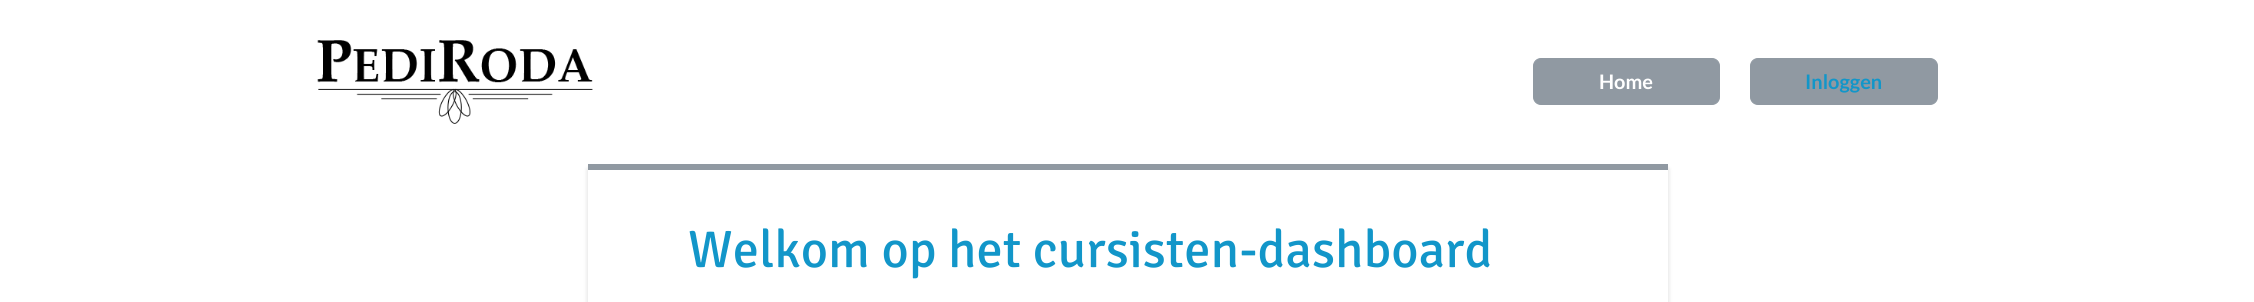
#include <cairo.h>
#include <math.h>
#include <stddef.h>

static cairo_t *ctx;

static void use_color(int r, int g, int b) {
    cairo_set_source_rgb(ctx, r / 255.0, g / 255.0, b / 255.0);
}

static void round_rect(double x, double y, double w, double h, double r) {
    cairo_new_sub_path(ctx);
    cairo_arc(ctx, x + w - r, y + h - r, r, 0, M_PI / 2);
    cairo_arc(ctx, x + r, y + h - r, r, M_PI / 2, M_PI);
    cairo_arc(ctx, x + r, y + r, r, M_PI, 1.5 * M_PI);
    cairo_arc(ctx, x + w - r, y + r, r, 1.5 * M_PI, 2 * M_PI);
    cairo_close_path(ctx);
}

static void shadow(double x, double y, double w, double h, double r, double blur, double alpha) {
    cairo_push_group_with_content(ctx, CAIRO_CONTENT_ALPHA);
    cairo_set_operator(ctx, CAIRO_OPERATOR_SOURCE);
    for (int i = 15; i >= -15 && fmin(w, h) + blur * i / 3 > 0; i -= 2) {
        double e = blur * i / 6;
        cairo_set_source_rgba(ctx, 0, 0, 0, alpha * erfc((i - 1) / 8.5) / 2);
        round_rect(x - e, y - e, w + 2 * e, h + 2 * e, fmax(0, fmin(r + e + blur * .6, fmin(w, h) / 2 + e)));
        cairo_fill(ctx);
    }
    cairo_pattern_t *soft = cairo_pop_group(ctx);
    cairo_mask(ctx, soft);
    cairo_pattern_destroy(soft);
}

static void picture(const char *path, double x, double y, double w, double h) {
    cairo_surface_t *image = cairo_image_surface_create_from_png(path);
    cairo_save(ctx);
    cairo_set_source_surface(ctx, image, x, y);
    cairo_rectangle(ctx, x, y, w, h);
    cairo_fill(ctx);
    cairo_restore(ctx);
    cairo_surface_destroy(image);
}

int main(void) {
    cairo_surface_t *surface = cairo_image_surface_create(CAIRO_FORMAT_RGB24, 2254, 302);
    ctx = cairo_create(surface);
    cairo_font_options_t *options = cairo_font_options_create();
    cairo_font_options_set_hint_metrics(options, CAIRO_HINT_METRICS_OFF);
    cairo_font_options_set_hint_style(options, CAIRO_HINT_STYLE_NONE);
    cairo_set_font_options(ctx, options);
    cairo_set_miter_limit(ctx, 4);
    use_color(255, 255, 255);
    cairo_paint(ctx);
    picture("img1.png", 317, 40, 276, 84);
    use_color(144, 153, 162);
    round_rect(1533.5, 58.5, 186, 46, 7.5);
    cairo_fill_preserve(ctx);
    cairo_set_line_width(ctx, 1);
    cairo_stroke(ctx);
    cairo_select_font_face(ctx, "Lato", CAIRO_FONT_SLANT_NORMAL, CAIRO_FONT_WEIGHT_BOLD);
    cairo_set_font_size(ctx, 20);
    use_color(255, 255, 255);
    cairo_move_to(ctx, 1599, 89);
    cairo_show_text(ctx, "Home");
    use_color(144, 153, 162);
    round_rect(1750.5, 58.5, 187, 46, 7.5);
    cairo_fill_preserve(ctx);
    cairo_stroke(ctx);
    use_color(18, 150, 201);
    cairo_move_to(ctx, 1805, 89);
    cairo_show_text(ctx, "Inloggen");
    use_color(0, 0, 0);
    shadow(588, 169, 1080, 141, 0, 2.5, 0.15);
    use_color(255, 255, 255);
    cairo_rectangle(ctx, 588, 170, 1080, 132);
    cairo_fill(ctx);
    use_color(144, 153, 162);
    cairo_rectangle(ctx, 588, 164, 1080, 6);
    cairo_fill(ctx);
    cairo_select_font_face(ctx, "Signika", CAIRO_FONT_SLANT_NORMAL, CAIRO_FONT_WEIGHT_NORMAL);
    cairo_set_font_size(ctx, 52.5);
    use_color(18, 150, 201);
    cairo_move_to(ctx, 688, 267);
    cairo_show_text(ctx, "Welkom op het cursisten-dashboard");
    cairo_surface_write_to_png(surface, "result.png");
    cairo_font_options_destroy(options);
    cairo_destroy(ctx);
    cairo_surface_destroy(surface);
    return 0;
}
